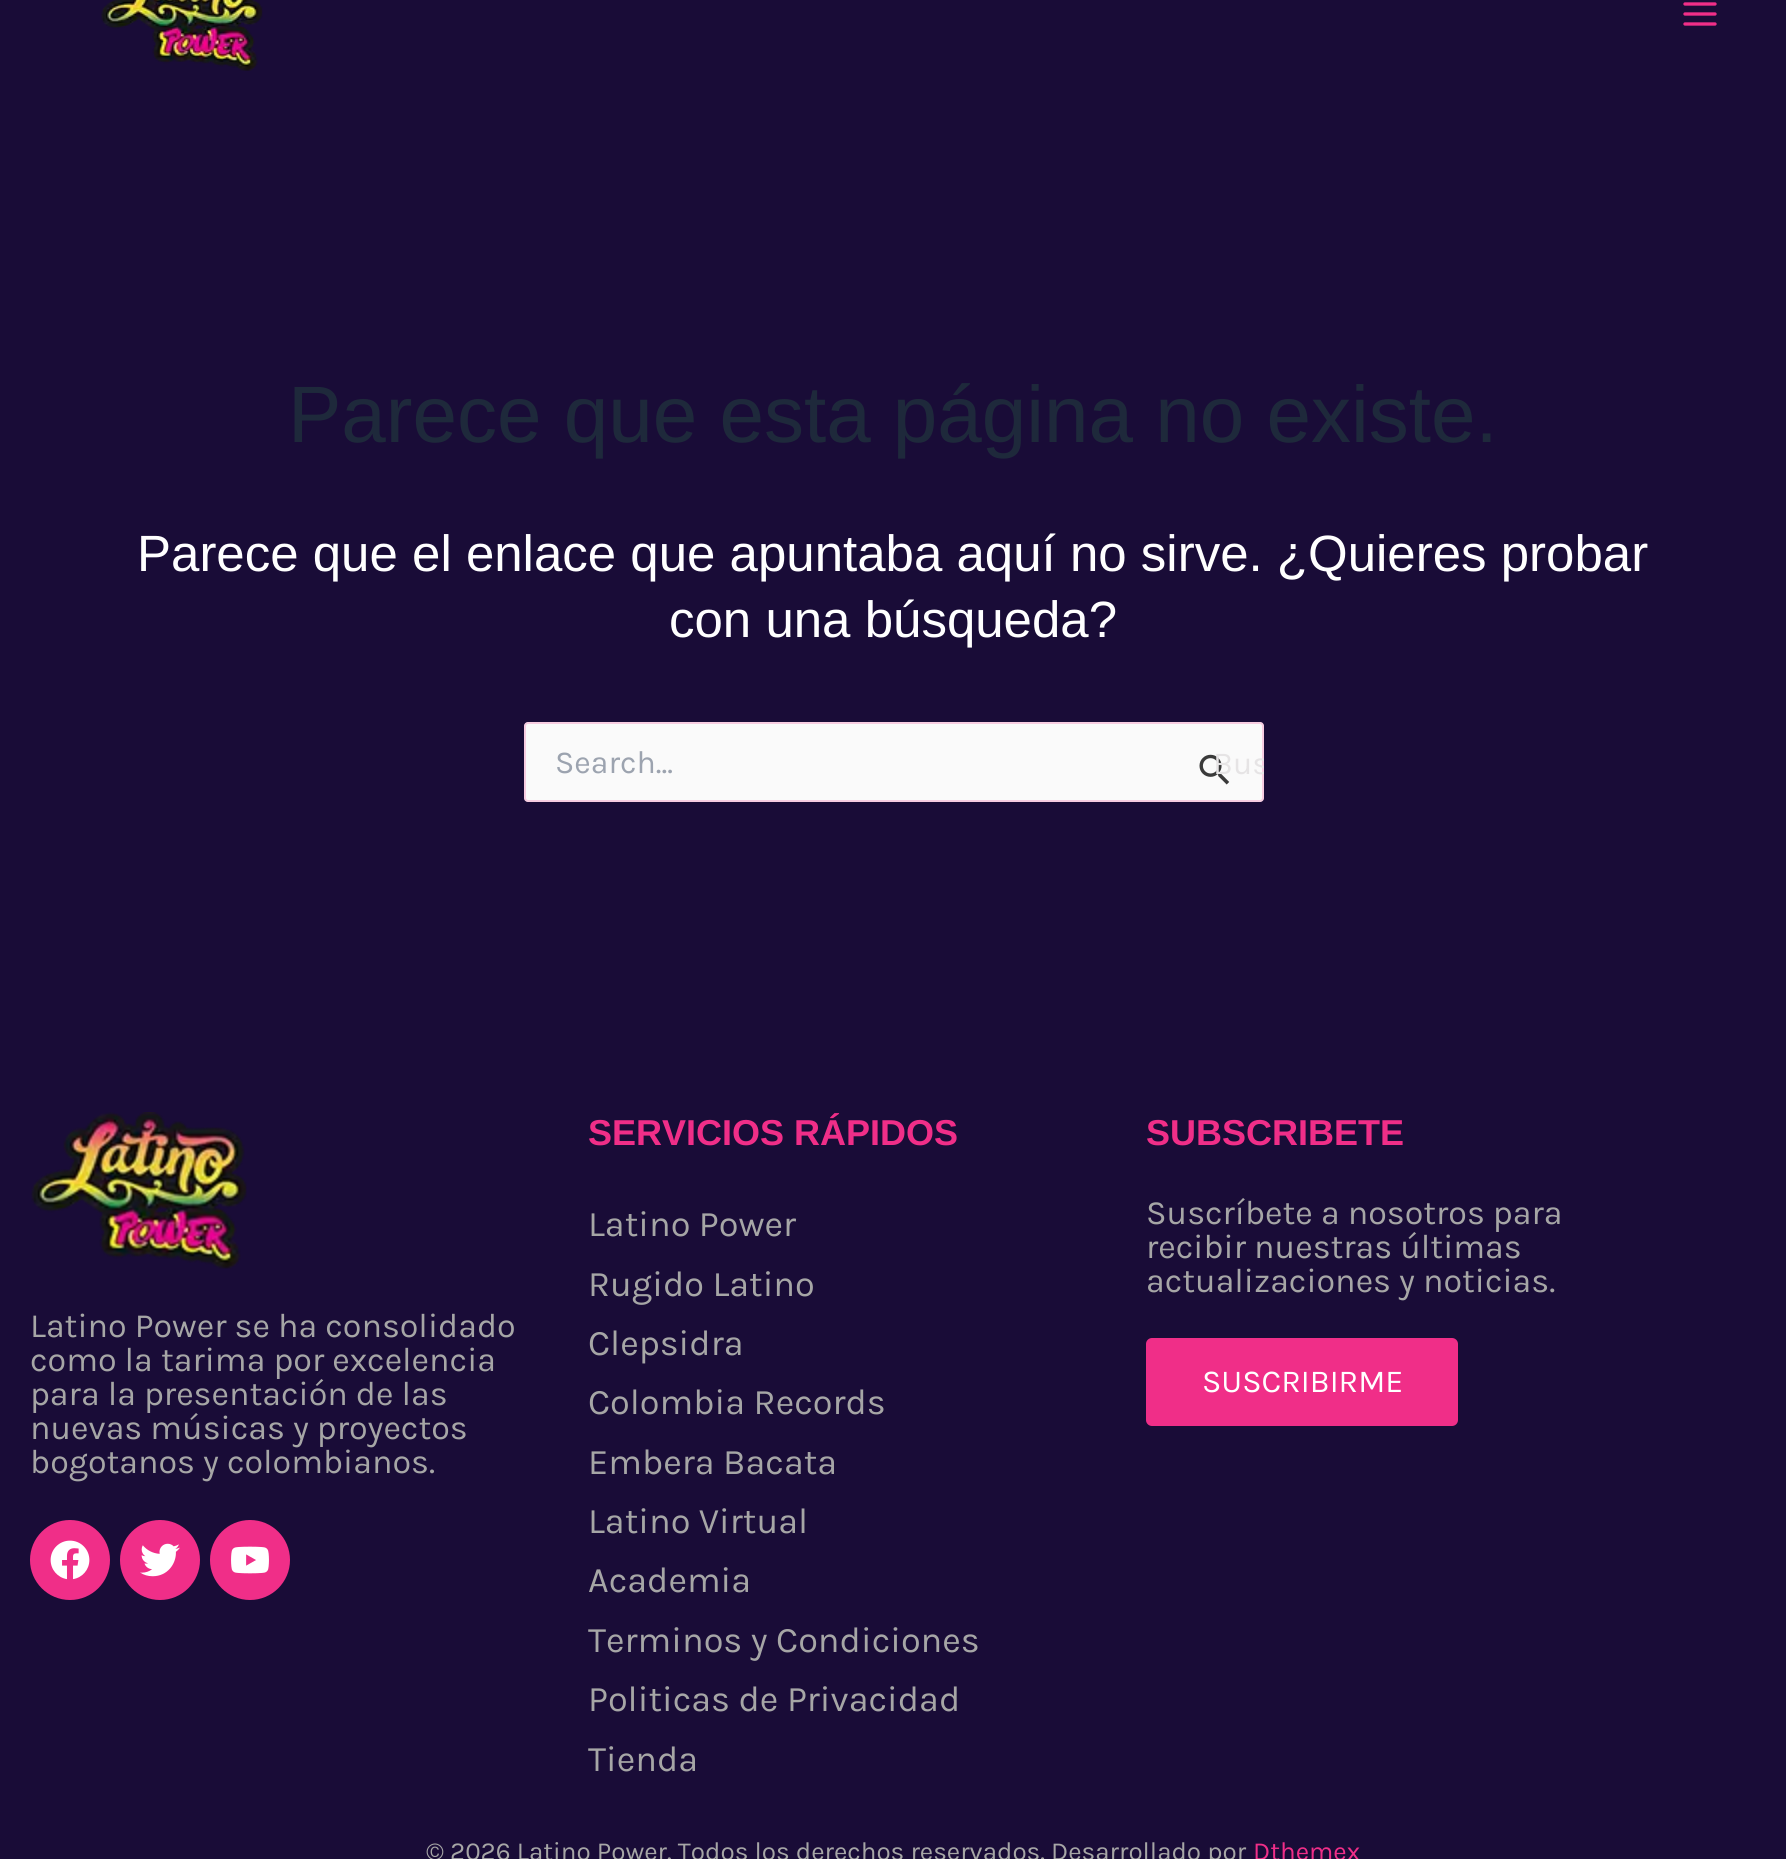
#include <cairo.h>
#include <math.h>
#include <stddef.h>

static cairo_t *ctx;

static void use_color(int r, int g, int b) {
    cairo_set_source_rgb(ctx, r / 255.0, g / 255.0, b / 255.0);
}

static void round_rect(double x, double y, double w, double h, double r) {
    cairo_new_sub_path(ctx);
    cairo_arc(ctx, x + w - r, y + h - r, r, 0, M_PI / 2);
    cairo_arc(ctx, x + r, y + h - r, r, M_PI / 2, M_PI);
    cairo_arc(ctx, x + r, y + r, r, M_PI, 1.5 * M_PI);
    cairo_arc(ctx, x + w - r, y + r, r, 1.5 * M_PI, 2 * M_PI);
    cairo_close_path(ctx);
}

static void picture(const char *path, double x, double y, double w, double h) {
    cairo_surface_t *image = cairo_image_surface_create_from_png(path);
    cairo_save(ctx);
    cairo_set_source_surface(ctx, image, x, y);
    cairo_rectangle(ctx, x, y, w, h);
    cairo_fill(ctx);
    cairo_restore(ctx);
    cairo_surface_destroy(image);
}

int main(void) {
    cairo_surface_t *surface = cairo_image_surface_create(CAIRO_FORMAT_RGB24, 1786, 1859);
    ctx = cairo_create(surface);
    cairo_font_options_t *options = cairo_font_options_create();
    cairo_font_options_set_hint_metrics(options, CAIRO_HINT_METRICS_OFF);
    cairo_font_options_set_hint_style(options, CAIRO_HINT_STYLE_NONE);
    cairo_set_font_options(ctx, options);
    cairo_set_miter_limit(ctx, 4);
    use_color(25, 12, 55);
    cairo_paint(ctx);
    picture("img1.png", 101, 0, 162, 71);
    picture("img2.png", 1683, 2, 34, 24);
    cairo_select_font_face(ctx, "Liberation Sans", CAIRO_FONT_SLANT_NORMAL, CAIRO_FONT_WEIGHT_NORMAL);
    cairo_set_font_size(ctx, 80);
    use_color(30, 41, 59);
    cairo_move_to(ctx, 288, 442);
    cairo_show_text(ctx, "Parece que esta página no existe.");
    cairo_set_font_size(ctx, 51);
    use_color(255, 255, 255);
    cairo_move_to(ctx, 137, 571);
    cairo_show_text(ctx, "Parece que el enlace que apuntaba aquí no sirve. ¿Quieres probar");
    cairo_move_to(ctx, 669, 637);
    cairo_show_text(ctx, "con una búsqueda?");
    use_color(250, 250, 250);
    round_rect(524, 722, 740, 80, 4);
    cairo_fill(ctx);
    round_rect(525, 723, 738, 78, 3);
    cairo_set_source_rgba(ctx, 0.941, 0.18, 0.533, 0.22);
    cairo_stroke(ctx);
    cairo_select_font_face(ctx, "Karla", CAIRO_FONT_SLANT_NORMAL, CAIRO_FONT_WEIGHT_NORMAL);
    cairo_set_font_size(ctx, 32);
    use_color(156, 163, 175);
    cairo_move_to(ctx, 555, 773);
    cairo_show_text(ctx, "Search...");
    picture("img3.png", 1199, 754, 31, 31);
    cairo_save(ctx);
    round_rect(1174, 722, 90, 84, 4);
    cairo_clip(ctx);
    use_color(230, 228, 229);
    cairo_move_to(ctx, 1213, 774);
    cairo_show_text(ctx, "Bus");
    cairo_restore(ctx);
    picture("img4.png", 31, 1112, 216, 157);
    cairo_set_font_size(ctx, 34);
    use_color(166, 166, 166);
    cairo_move_to(ctx, 30, 1337);
    cairo_show_text(ctx, "Latino Power se ha consolidado");
    cairo_move_to(ctx, 30, 1371);
    cairo_show_text(ctx, "como la tarima por excelencia");
    cairo_move_to(ctx, 30, 1405);
    cairo_show_text(ctx, "para la presentación de las");
    cairo_move_to(ctx, 30, 1439);
    cairo_show_text(ctx, "nuevas músicas y proyectos");
    cairo_move_to(ctx, 30, 1473);
    cairo_show_text(ctx, "bogotanos y colombianos.");
    use_color(240, 46, 136);
    cairo_new_path(ctx);
    cairo_arc(ctx, 70, 1560, 40, 0, 2 * M_PI);
    cairo_fill(ctx);
    picture("img5.png", 50, 1540, 40, 40);
    cairo_arc(ctx, 160, 1560, 40, 0, 2 * M_PI);
    cairo_fill(ctx);
    picture("img6.png", 140, 1543, 40, 34);
    cairo_arc(ctx, 250, 1560, 40, 0, 2 * M_PI);
    cairo_fill(ctx);
    picture("img7.png", 231, 1546, 38, 28);
    cairo_select_font_face(ctx, "Liberation Sans", CAIRO_FONT_SLANT_NORMAL, CAIRO_FONT_WEIGHT_BOLD);
    cairo_set_font_size(ctx, 36);
    cairo_move_to(ctx, 588, 1145);
    cairo_show_text(ctx, "SERVICIOS RÁPIDOS");
    cairo_select_font_face(ctx, "Karla", CAIRO_FONT_SLANT_NORMAL, CAIRO_FONT_WEIGHT_NORMAL);
    use_color(166, 166, 166);
    cairo_move_to(ctx, 588, 1236);
    cairo_show_text(ctx, "Latino Power");
    cairo_move_to(ctx, 588, 1296);
    cairo_show_text(ctx, "Rugido Latino");
    cairo_move_to(ctx, 588, 1355);
    cairo_show_text(ctx, "Clepsidra");
    cairo_move_to(ctx, 588, 1414);
    cairo_show_text(ctx, "Colombia Records");
    cairo_move_to(ctx, 588, 1474);
    cairo_show_text(ctx, "Embera Bacata");
    cairo_move_to(ctx, 588, 1533);
    cairo_show_text(ctx, "Latino Virtual");
    cairo_move_to(ctx, 588, 1592);
    cairo_show_text(ctx, "Academia");
    cairo_move_to(ctx, 588, 1652);
    cairo_show_text(ctx, "Terminos y Condiciones");
    cairo_move_to(ctx, 588, 1711);
    cairo_show_text(ctx, "Politicas de Privacidad");
    cairo_move_to(ctx, 588, 1771);
    cairo_show_text(ctx, "Tienda");
    cairo_select_font_face(ctx, "Liberation Sans", CAIRO_FONT_SLANT_NORMAL, CAIRO_FONT_WEIGHT_BOLD);
    use_color(240, 46, 136);
    cairo_move_to(ctx, 1146, 1145);
    cairo_show_text(ctx, "SUBSCRIBETE");
    cairo_select_font_face(ctx, "Karla", CAIRO_FONT_SLANT_NORMAL, CAIRO_FONT_WEIGHT_NORMAL);
    cairo_set_font_size(ctx, 34);
    use_color(166, 166, 166);
    cairo_move_to(ctx, 1146, 1224);
    cairo_show_text(ctx, "Suscríbete a nosotros para");
    cairo_move_to(ctx, 1146, 1258);
    cairo_show_text(ctx, "recibir nuestras últimas");
    cairo_move_to(ctx, 1146, 1292);
    cairo_show_text(ctx, "actualizaciones y noticias.");
    use_color(240, 46, 136);
    round_rect(1146, 1338, 312, 88, 6);
    cairo_fill(ctx);
    cairo_set_font_size(ctx, 32);
    use_color(255, 255, 255);
    cairo_move_to(ctx, 1202, 1392);
    cairo_show_text(ctx, "SUSCRIBIRME");
    cairo_set_font_size(ctx, 26);
    use_color(166, 166, 166);
    cairo_move_to(ctx, 426, 1860);
    cairo_show_text(ctx, "© 2026 Latino Power. Todos los derechos reservados. Desarrollado por");
    use_color(240, 46, 136);
    cairo_move_to(ctx, 1253, 1860);
    cairo_show_text(ctx, "Dthemex");
    cairo_surface_write_to_png(surface, "result.png");
    cairo_font_options_destroy(options);
    cairo_destroy(ctx);
    cairo_surface_destroy(surface);
    return 0;
}
